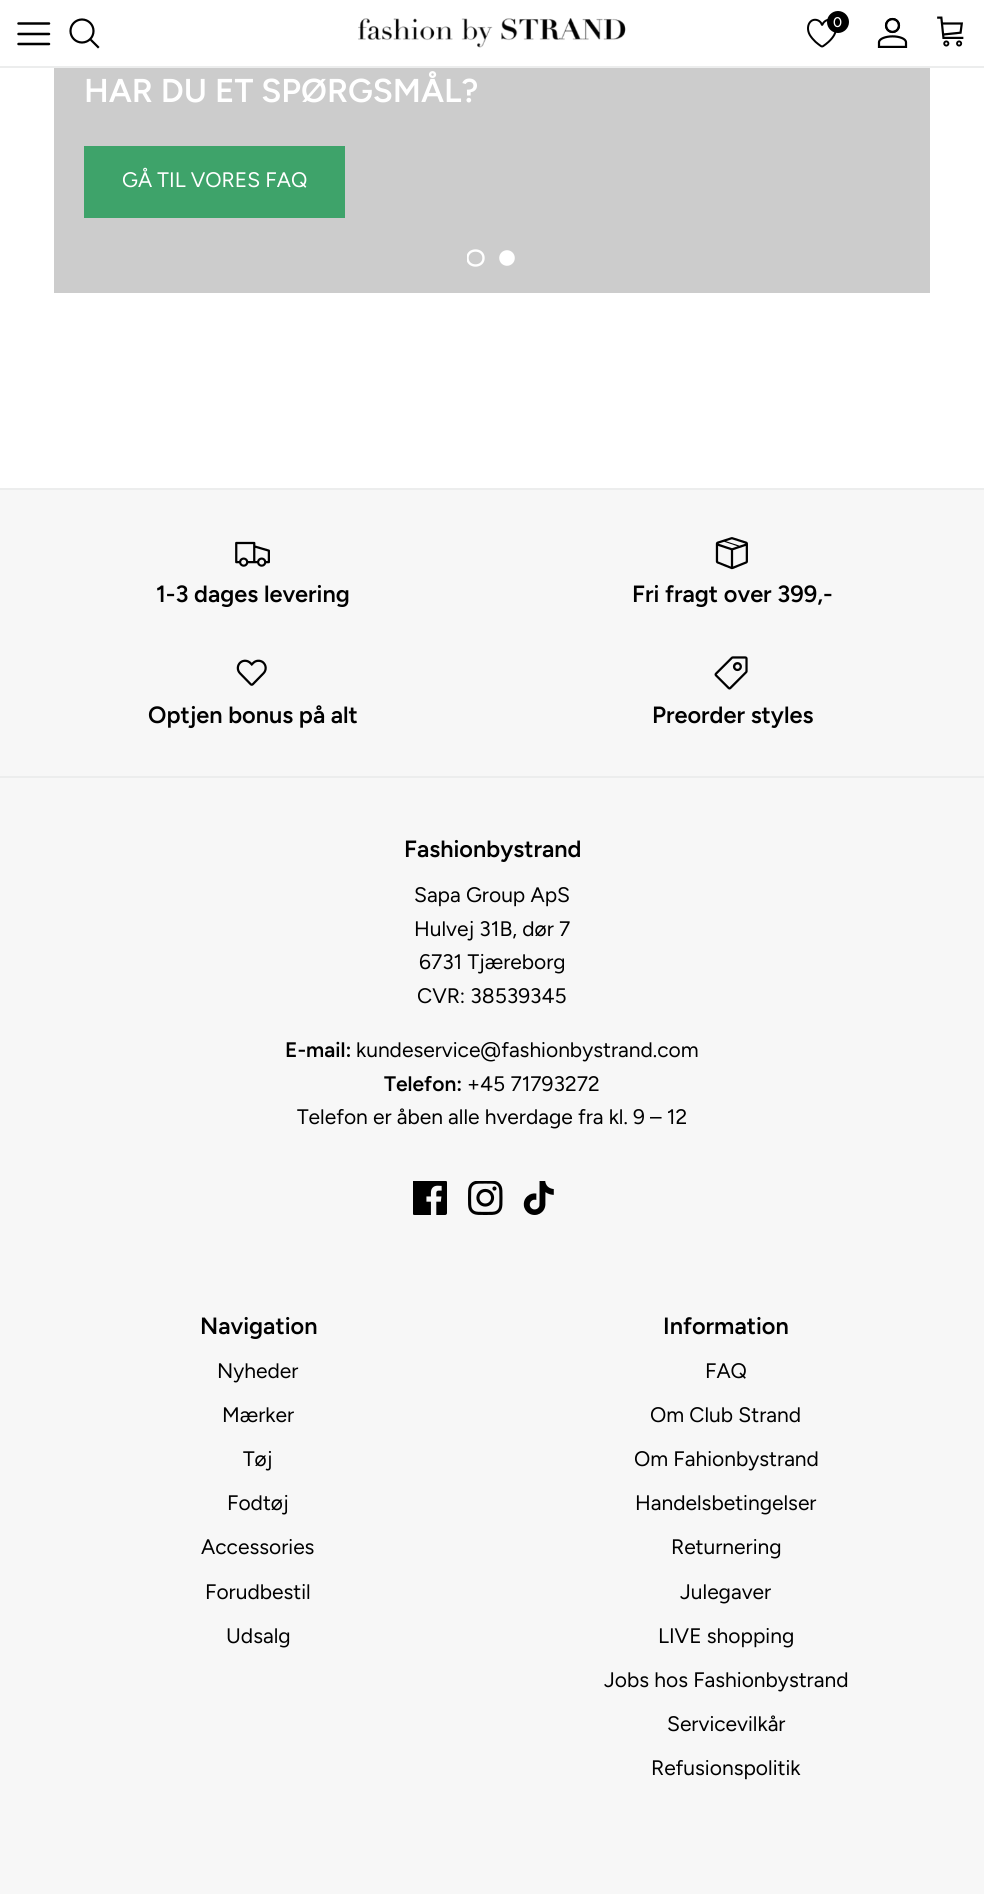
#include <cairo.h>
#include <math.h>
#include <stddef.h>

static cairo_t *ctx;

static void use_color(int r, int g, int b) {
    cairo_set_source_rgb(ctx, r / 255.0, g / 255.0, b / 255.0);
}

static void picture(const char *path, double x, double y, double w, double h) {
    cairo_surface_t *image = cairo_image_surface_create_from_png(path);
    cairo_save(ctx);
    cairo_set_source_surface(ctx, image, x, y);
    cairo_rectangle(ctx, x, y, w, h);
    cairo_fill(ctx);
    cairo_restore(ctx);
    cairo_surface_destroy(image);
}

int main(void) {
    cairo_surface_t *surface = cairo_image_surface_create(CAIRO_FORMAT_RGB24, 984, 1894);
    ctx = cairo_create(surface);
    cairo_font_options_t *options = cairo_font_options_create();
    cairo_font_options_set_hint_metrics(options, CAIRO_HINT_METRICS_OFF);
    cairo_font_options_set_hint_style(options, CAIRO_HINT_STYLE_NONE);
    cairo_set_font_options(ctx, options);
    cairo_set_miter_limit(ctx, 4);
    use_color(255, 255, 255);
    cairo_paint(ctx);
    use_color(236, 237, 237);
    cairo_rectangle(ctx, 0, 66, 984, 2);
    cairo_fill(ctx);
    cairo_new_path(ctx);
    cairo_move_to(ctx, 18.5, 34);
    cairo_line_to(ctx, 49, 34);
    cairo_move_to(ctx, 18.5, 23.5);
    cairo_line_to(ctx, 49, 23.5);
    cairo_move_to(ctx, 18.5, 44);
    cairo_line_to(ctx, 49, 44);
    use_color(0, 0, 0);
    cairo_set_line_width(ctx, 2.5);
    cairo_set_line_cap(ctx, CAIRO_LINE_CAP_ROUND);
    cairo_set_line_join(ctx, CAIRO_LINE_JOIN_ROUND);
    cairo_stroke(ctx);
    cairo_arc(ctx, 82, 31, 11.5, 0, 2 * M_PI);
    cairo_set_line_width(ctx, 2.2);
    cairo_set_line_cap(ctx, CAIRO_LINE_CAP_BUTT);
    cairo_set_line_join(ctx, CAIRO_LINE_JOIN_MITER);
    cairo_stroke(ctx);
    cairo_new_path(ctx);
    cairo_move_to(ctx, 91.5, 40.5);
    cairo_line_to(ctx, 98, 47);
    cairo_set_line_cap(ctx, CAIRO_LINE_CAP_SQUARE);
    cairo_stroke(ctx);
    picture("img1.png", 358, 18, 268, 30);
    picture("img2.png", 807, 18, 30, 30);
    cairo_arc(ctx, 838, 22, 11, 0, 2 * M_PI);
    cairo_fill(ctx);
    cairo_select_font_face(ctx, "Figtree Medium", CAIRO_FONT_SLANT_NORMAL, CAIRO_FONT_WEIGHT_NORMAL);
    cairo_set_font_size(ctx, 14);
    use_color(255, 255, 255);
    cairo_move_to(ctx, 833, 27);
    cairo_show_text(ctx, "0");
    picture("img3.png", 877, 17, 31, 31);
    picture("img4.png", 937, 16, 27, 31);
    use_color(204, 204, 204);
    cairo_rectangle(ctx, 54, 68, 876, 225);
    cairo_fill(ctx);
    cairo_select_font_face(ctx, "Figtree SemiBold", CAIRO_FONT_SLANT_NORMAL, CAIRO_FONT_WEIGHT_NORMAL);
    cairo_set_font_size(ctx, 33);
    use_color(255, 255, 255);
    cairo_move_to(ctx, 84, 102);
    cairo_show_text(ctx, "HAR DU ET SPØRGSMÅL?");
    use_color(62, 163, 106);
    cairo_rectangle(ctx, 84, 146, 261, 72);
    cairo_fill(ctx);
    cairo_select_font_face(ctx, "Figtree", CAIRO_FONT_SLANT_NORMAL, CAIRO_FONT_WEIGHT_NORMAL);
    cairo_set_font_size(ctx, 21);
    use_color(255, 255, 255);
    cairo_move_to(ctx, 122, 187);
    cairo_show_text(ctx, "GÅ TIL VORES FAQ");
    cairo_save(ctx);
    cairo_rectangle(ctx, 467, 249, 18, 18);
    cairo_clip(ctx);
    cairo_new_path(ctx);
    cairo_move_to(ctx, 467.5, 258);
    cairo_curve_to(ctx, 467.5, 248, 483.5, 248, 483.5, 258);
    cairo_curve_to(ctx, 483.5, 268, 467.5, 268, 467.5, 258);
    cairo_set_line_width(ctx, 2.4);
    cairo_set_line_cap(ctx, CAIRO_LINE_CAP_BUTT);
    cairo_stroke(ctx);
    cairo_restore(ctx);
    picture("img5.png", 499, 250, 16, 16);
    use_color(247, 247, 247);
    cairo_rectangle(ctx, 0, 490, 984, 1404);
    cairo_fill(ctx);
    use_color(236, 237, 237);
    cairo_rectangle(ctx, 0, 488, 984, 2);
    cairo_fill(ctx);
    picture("img6.png", 235, 541, 35, 26);
    cairo_select_font_face(ctx, "Figtree SemiBold", CAIRO_FONT_SLANT_NORMAL, CAIRO_FONT_WEIGHT_NORMAL);
    cairo_set_font_size(ctx, 23.5);
    use_color(0, 0, 0);
    cairo_move_to(ctx, 156, 602);
    cairo_show_text(ctx, "1-3 dages levering");
    picture("img7.png", 715, 537, 33, 33);
    cairo_move_to(ctx, 632, 602);
    cairo_show_text(ctx, "Fri fragt over 399,-");
    picture("img8.png", 236, 659, 31, 27);
    cairo_move_to(ctx, 148, 723);
    cairo_show_text(ctx, "Optjen bonus på alt");
    picture("img9.png", 714, 656, 34, 34);
    cairo_move_to(ctx, 652, 723);
    cairo_show_text(ctx, "Preorder styles");
    use_color(236, 237, 237);
    cairo_rectangle(ctx, 0, 776, 984, 2);
    cairo_fill(ctx);
    use_color(0, 0, 0);
    cairo_move_to(ctx, 404, 857);
    cairo_show_text(ctx, "Fashionbystrand");
    cairo_select_font_face(ctx, "Figtree", CAIRO_FONT_SLANT_NORMAL, CAIRO_FONT_WEIGHT_NORMAL);
    cairo_set_font_size(ctx, 21);
    cairo_move_to(ctx, 414, 902);
    cairo_show_text(ctx, "Sapa Group ApS");
    cairo_move_to(ctx, 414, 936);
    cairo_show_text(ctx, "Hulvej 31B, dør 7");
    cairo_move_to(ctx, 419, 969);
    cairo_show_text(ctx, "6731 Tjæreborg");
    cairo_move_to(ctx, 417, 1003);
    cairo_show_text(ctx, "CVR: 38539345");
    cairo_select_font_face(ctx, "Figtree SemiBold", CAIRO_FONT_SLANT_NORMAL, CAIRO_FONT_WEIGHT_NORMAL);
    cairo_move_to(ctx, 285, 1057);
    cairo_show_text(ctx, "E-mail:");
    cairo_select_font_face(ctx, "Figtree", CAIRO_FONT_SLANT_NORMAL, CAIRO_FONT_WEIGHT_NORMAL);
    cairo_move_to(ctx, 356, 1057);
    cairo_show_text(ctx, "kundeservice@fashionbystrand.com");
    cairo_select_font_face(ctx, "Figtree SemiBold", CAIRO_FONT_SLANT_NORMAL, CAIRO_FONT_WEIGHT_NORMAL);
    cairo_move_to(ctx, 384, 1091);
    cairo_show_text(ctx, "Telefon:");
    cairo_select_font_face(ctx, "Figtree", CAIRO_FONT_SLANT_NORMAL, CAIRO_FONT_WEIGHT_NORMAL);
    cairo_move_to(ctx, 467, 1091);
    cairo_show_text(ctx, "+45 71793272");
    cairo_move_to(ctx, 297, 1124);
    cairo_show_text(ctx, "Telefon er åben alle hverdage fra kl. 9 – 12");
    picture("img10.png", 413, 1181, 34, 34);
    picture("img11.png", 468, 1181, 35, 34);
    picture("img12.png", 523, 1181, 31, 34);
    cairo_select_font_face(ctx, "Figtree SemiBold", CAIRO_FONT_SLANT_NORMAL, CAIRO_FONT_WEIGHT_NORMAL);
    cairo_set_font_size(ctx, 23.5);
    cairo_move_to(ctx, 200, 1334);
    cairo_show_text(ctx, "Navigation");
    cairo_select_font_face(ctx, "Figtree", CAIRO_FONT_SLANT_NORMAL, CAIRO_FONT_WEIGHT_NORMAL);
    cairo_set_font_size(ctx, 21);
    cairo_move_to(ctx, 217, 1378);
    cairo_show_text(ctx, "Nyheder");
    cairo_move_to(ctx, 222, 1422);
    cairo_show_text(ctx, "Mærker");
    cairo_move_to(ctx, 243, 1466);
    cairo_show_text(ctx, "Tøj");
    cairo_move_to(ctx, 227, 1510);
    cairo_show_text(ctx, "Fodtøj");
    cairo_move_to(ctx, 201, 1554);
    cairo_show_text(ctx, "Accessories");
    cairo_move_to(ctx, 205, 1599);
    cairo_show_text(ctx, "Forudbestil");
    cairo_move_to(ctx, 226, 1643);
    cairo_show_text(ctx, "Udsalg");
    cairo_select_font_face(ctx, "Figtree SemiBold", CAIRO_FONT_SLANT_NORMAL, CAIRO_FONT_WEIGHT_NORMAL);
    cairo_set_font_size(ctx, 23.5);
    cairo_move_to(ctx, 663, 1334);
    cairo_show_text(ctx, "Information");
    cairo_select_font_face(ctx, "Figtree", CAIRO_FONT_SLANT_NORMAL, CAIRO_FONT_WEIGHT_NORMAL);
    cairo_set_font_size(ctx, 21);
    cairo_move_to(ctx, 705, 1378);
    cairo_show_text(ctx, "FAQ");
    cairo_move_to(ctx, 650, 1422);
    cairo_show_text(ctx, "Om Club Strand");
    cairo_move_to(ctx, 634, 1466);
    cairo_show_text(ctx, "Om Fahionbystrand");
    cairo_move_to(ctx, 635, 1510);
    cairo_show_text(ctx, "Handelsbetingelser");
    cairo_move_to(ctx, 671, 1554);
    cairo_show_text(ctx, "Returnering");
    cairo_move_to(ctx, 680, 1599);
    cairo_show_text(ctx, "Julegaver");
    cairo_move_to(ctx, 658, 1643);
    cairo_show_text(ctx, "LIVE shopping");
    cairo_move_to(ctx, 604, 1687);
    cairo_show_text(ctx, "Jobs hos Fashionbystrand");
    cairo_move_to(ctx, 667, 1731);
    cairo_show_text(ctx, "Servicevilkår");
    cairo_move_to(ctx, 651, 1775);
    cairo_show_text(ctx, "Refusionspolitik");
    cairo_surface_write_to_png(surface, "result.png");
    cairo_font_options_destroy(options);
    cairo_destroy(ctx);
    cairo_surface_destroy(surface);
    return 0;
}
